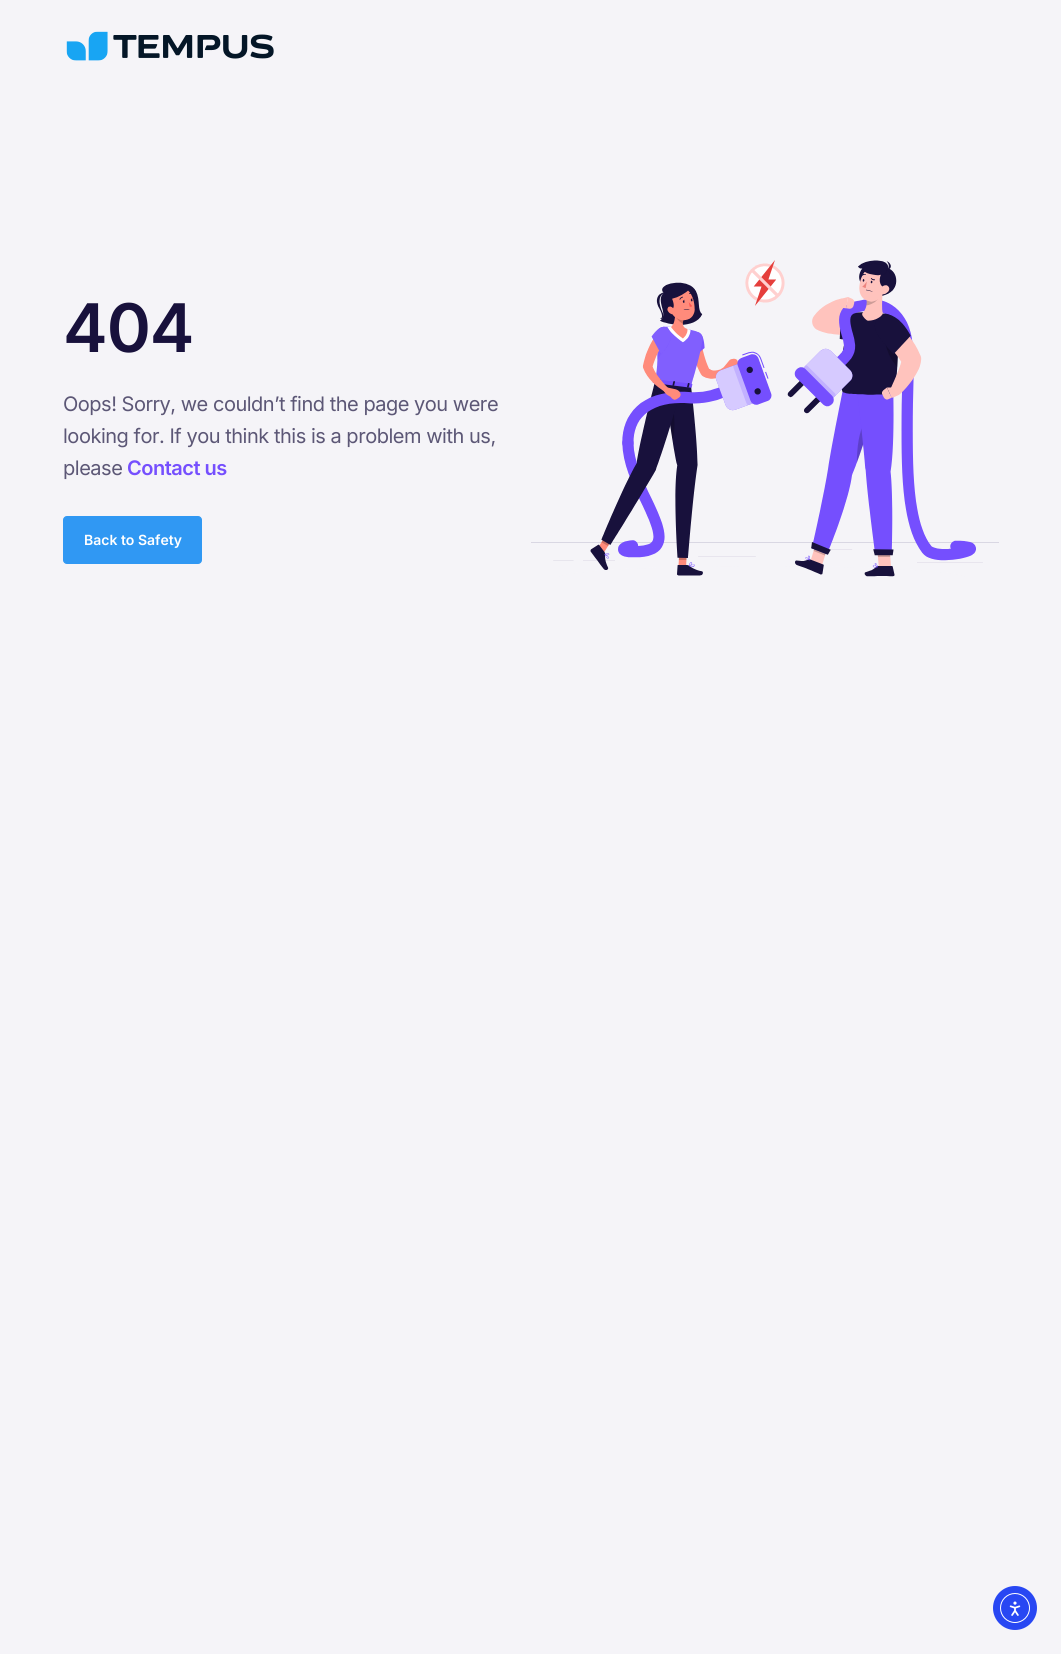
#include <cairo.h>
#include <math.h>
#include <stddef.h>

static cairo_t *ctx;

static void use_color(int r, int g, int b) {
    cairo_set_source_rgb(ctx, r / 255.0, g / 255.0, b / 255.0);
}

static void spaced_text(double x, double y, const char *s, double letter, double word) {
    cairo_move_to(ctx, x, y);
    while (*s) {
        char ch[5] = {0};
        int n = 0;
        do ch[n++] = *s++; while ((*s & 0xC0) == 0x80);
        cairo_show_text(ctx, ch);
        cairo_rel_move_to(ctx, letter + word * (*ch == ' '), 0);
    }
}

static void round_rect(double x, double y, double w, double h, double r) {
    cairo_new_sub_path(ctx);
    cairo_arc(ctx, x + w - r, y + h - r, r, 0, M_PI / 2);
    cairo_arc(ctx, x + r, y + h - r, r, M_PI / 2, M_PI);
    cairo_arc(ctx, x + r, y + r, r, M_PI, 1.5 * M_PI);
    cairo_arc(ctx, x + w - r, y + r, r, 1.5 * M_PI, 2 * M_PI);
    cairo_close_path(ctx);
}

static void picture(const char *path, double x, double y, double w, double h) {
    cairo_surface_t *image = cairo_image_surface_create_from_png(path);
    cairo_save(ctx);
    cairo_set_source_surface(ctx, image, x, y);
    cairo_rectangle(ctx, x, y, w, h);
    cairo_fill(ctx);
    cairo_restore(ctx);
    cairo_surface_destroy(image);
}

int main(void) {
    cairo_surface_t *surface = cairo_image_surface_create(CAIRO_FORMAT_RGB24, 1061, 1654);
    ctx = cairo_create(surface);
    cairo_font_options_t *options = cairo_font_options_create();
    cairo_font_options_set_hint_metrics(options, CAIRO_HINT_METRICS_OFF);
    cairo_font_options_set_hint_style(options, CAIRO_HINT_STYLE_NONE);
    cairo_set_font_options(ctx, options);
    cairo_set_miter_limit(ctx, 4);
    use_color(245, 244, 248);
    cairo_paint(ctx);
    picture("img1.png", 66, 31, 208, 30);
    cairo_select_font_face(ctx, "Inter SemiBold", CAIRO_FONT_SLANT_NORMAL, CAIRO_FONT_WEIGHT_NORMAL);
    cairo_set_font_size(ctx, 67);
    use_color(24, 17, 60);
    spaced_text(63, 352, "404", -1, 0);
    cairo_select_font_face(ctx, "Inter", CAIRO_FONT_SLANT_NORMAL, CAIRO_FONT_WEIGHT_NORMAL);
    cairo_set_font_size(ctx, 20);
    use_color(92, 87, 118);
    spaced_text(63, 411, "Oops! Sorry, we couldn’t find the page you were", -0.48, 0);
    spaced_text(63, 443, "looking for. If you think this is a problem with us,", -0.48, 0);
    spaced_text(63, 475, "please", -0.48, 0);
    cairo_select_font_face(ctx, "Inter SemiBold", CAIRO_FONT_SLANT_NORMAL, CAIRO_FONT_WEIGHT_NORMAL);
    use_color(117, 79, 254);
    spaced_text(127, 475, "Contact us", -0.48, 0);
    use_color(48, 152, 243);
    round_rect(63.5, 516.5, 138, 47, 3.5);
    cairo_fill_preserve(ctx);
    cairo_set_line_width(ctx, 1);
    cairo_stroke(ctx);
    cairo_set_font_size(ctx, 14);
    use_color(255, 255, 255);
    cairo_move_to(ctx, 84, 545);
    cairo_show_text(ctx, "Back to Safety");
    picture("img2.png", 531, 260, 468, 317);
    use_color(40, 71, 243);
    cairo_arc(ctx, 1015, 1608, 22, 0, 2 * M_PI);
    cairo_fill(ctx);
    cairo_arc(ctx, 1015, 1608, 14.5, 0, 2 * M_PI);
    use_color(255, 255, 255);
    cairo_stroke(ctx);
    picture("img3.png", 1009, 1601, 12, 15);
    cairo_surface_write_to_png(surface, "result.png");
    cairo_font_options_destroy(options);
    cairo_destroy(ctx);
    cairo_surface_destroy(surface);
    return 0;
}
